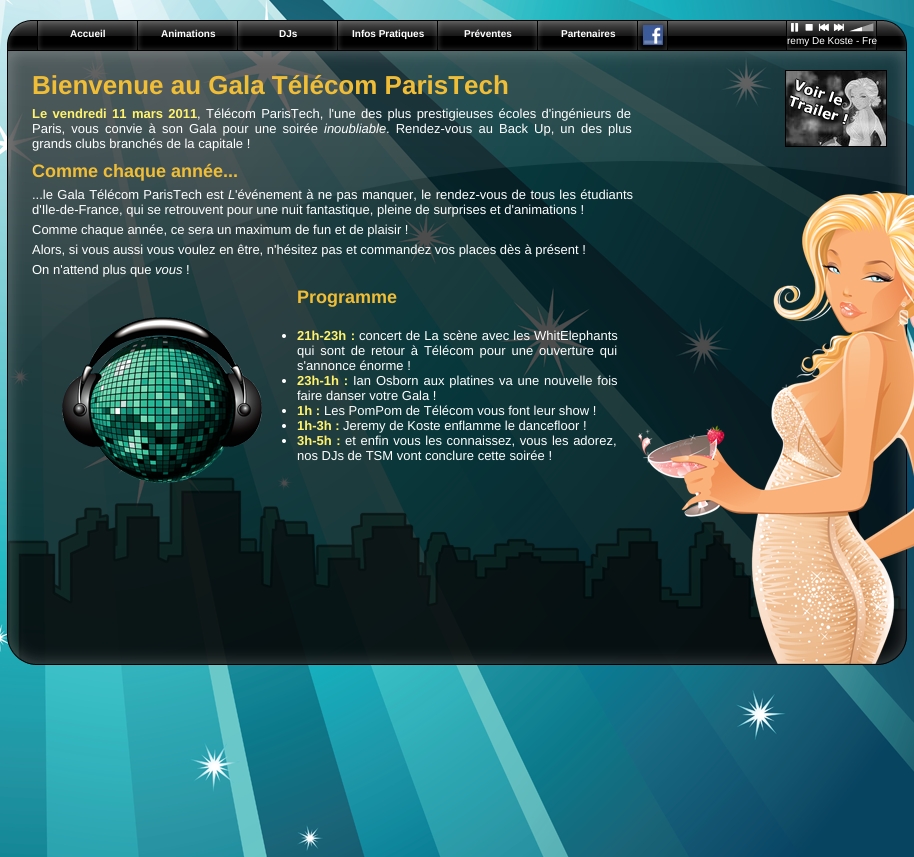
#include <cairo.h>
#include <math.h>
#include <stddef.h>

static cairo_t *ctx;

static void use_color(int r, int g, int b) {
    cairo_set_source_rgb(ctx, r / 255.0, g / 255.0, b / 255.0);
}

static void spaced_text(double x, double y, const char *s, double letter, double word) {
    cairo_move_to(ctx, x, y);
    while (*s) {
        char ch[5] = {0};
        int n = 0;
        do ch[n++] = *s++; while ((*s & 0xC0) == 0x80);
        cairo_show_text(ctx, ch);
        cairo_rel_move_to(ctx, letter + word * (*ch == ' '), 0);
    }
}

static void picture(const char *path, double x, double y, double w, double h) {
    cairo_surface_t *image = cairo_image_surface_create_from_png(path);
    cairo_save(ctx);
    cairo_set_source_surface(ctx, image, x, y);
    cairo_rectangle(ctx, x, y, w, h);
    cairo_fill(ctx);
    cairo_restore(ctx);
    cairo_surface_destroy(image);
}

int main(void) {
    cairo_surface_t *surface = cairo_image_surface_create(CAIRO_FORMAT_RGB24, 914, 857);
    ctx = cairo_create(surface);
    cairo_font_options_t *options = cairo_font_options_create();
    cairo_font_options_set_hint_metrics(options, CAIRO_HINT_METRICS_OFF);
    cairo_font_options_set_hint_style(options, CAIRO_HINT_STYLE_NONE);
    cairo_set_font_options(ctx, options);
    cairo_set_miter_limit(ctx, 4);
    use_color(255, 255, 255);
    cairo_paint(ctx);
    picture("img1.png", 0, 0, 914, 857);
    use_color(0, 0, 0);
    cairo_rectangle(ctx, 37, 20, 1, 30);
    cairo_fill(ctx);
    cairo_rectangle(ctx, 38, 21, 630, 29);
    cairo_fill(ctx);
    picture("img2.png", 38, 21, 99, 29);
    cairo_select_font_face(ctx, "Liberation Sans", CAIRO_FONT_SLANT_NORMAL, CAIRO_FONT_WEIGHT_BOLD);
    cairo_set_font_size(ctx, 10);
    use_color(255, 255, 255);
    cairo_move_to(ctx, 70, 37);
    cairo_show_text(ctx, "Accueil");
    picture("img2.png", 138, 21, 99, 29);
    cairo_move_to(ctx, 161, 37);
    cairo_show_text(ctx, "Animations");
    picture("img2.png", 238, 21, 99, 29);
    cairo_move_to(ctx, 279, 37);
    cairo_show_text(ctx, "DJs");
    picture("img2.png", 338, 21, 99, 29);
    cairo_move_to(ctx, 352, 37);
    cairo_show_text(ctx, "Infos Pratiques");
    picture("img2.png", 438, 21, 99, 29);
    cairo_move_to(ctx, 464, 37);
    cairo_show_text(ctx, "Préventes");
    picture("img2.png", 538, 21, 99, 29);
    cairo_move_to(ctx, 561, 37);
    cairo_show_text(ctx, "Partenaires");
    picture("img3.png", 638, 21, 29, 29);
    picture("img4.png", 643, 25, 20, 20);
    use_color(0, 0, 0);
    cairo_rectangle(ctx, 786, 21, 91, 29);
    cairo_fill(ctx);
    picture("img5.png", 787, 35, 89, 13);
    use_color(255, 255, 255);
    cairo_rectangle(ctx, 791, 23, 8, 9);
    cairo_fill(ctx);
    picture("img6.png", 787, 20, 15, 15);
    cairo_rectangle(ctx, 805, 24, 8, 7);
    cairo_fill(ctx);
    picture("img7.png", 802, 20, 15, 15);
    cairo_rectangle(ctx, 818, 23, 11, 8);
    cairo_fill(ctx);
    picture("img8.png", 817, 20, 15, 15);
    cairo_rectangle(ctx, 833, 23, 11, 8);
    cairo_fill(ctx);
    picture("img9.png", 832, 20, 15, 15);
    use_color(102, 102, 102);
    cairo_rectangle(ctx, 862, 23, 12, 9);
    cairo_fill(ctx);
    picture("img10.png", 862, 20, 15, 15);
    use_color(255, 255, 255);
    cairo_rectangle(ctx, 849, 27, 13, 5);
    cairo_fill(ctx);
    picture("img11.png", 847, 20, 15, 15);
    cairo_select_font_face(ctx, "Liberation Sans", CAIRO_FONT_SLANT_NORMAL, CAIRO_FONT_WEIGHT_NORMAL);
    cairo_move_to(ctx, 787, 44);
    cairo_show_text(ctx, "remy De Koste - Fre");
    use_color(38, 38, 38);
    cairo_rectangle(ctx, 787, 48, 89, 2);
    cairo_fill(ctx);
    cairo_select_font_face(ctx, "Liberation Sans", CAIRO_FONT_SLANT_NORMAL, CAIRO_FONT_WEIGHT_BOLD);
    cairo_set_font_size(ctx, 26);
    use_color(240, 189, 54);
    cairo_move_to(ctx, 32, 94);
    cairo_show_text(ctx, "Bienvenue au Gala Télécom ParisTech");
    cairo_set_font_size(ctx, 13);
    use_color(255, 243, 110);
    spaced_text(32, 118, "Le vendredi 11 mars 2011", 0, 1.75);
    cairo_select_font_face(ctx, "Liberation Sans", CAIRO_FONT_SLANT_NORMAL, CAIRO_FONT_WEIGHT_NORMAL);
    use_color(255, 255, 255);
    spaced_text(197, 118, ", Télécom ParisTech, l'une des plus prestigieuses écoles d'ingénieurs de", 0, 1.75);
    spaced_text(32, 133, "Paris, vous convie à son Gala pour une soirée", 0, 2.5);
    cairo_select_font_face(ctx, "Liberation Sans", CAIRO_FONT_SLANT_ITALIC, CAIRO_FONT_WEIGHT_NORMAL);
    cairo_move_to(ctx, 324, 133);
    cairo_show_text(ctx, "inoubliable");
    cairo_select_font_face(ctx, "Liberation Sans", CAIRO_FONT_SLANT_NORMAL, CAIRO_FONT_WEIGHT_NORMAL);
    spaced_text(386, 133, ". Rendez-vous au Back Up, un des plus", 0, 2.5);
    cairo_move_to(ctx, 32, 148);
    cairo_show_text(ctx, "grands clubs branchés de la capitale !");
    cairo_select_font_face(ctx, "Liberation Sans", CAIRO_FONT_SLANT_NORMAL, CAIRO_FONT_WEIGHT_BOLD);
    cairo_set_font_size(ctx, 18);
    use_color(240, 189, 54);
    cairo_move_to(ctx, 32, 177);
    cairo_show_text(ctx, "Comme chaque année...");
    cairo_select_font_face(ctx, "Liberation Sans", CAIRO_FONT_SLANT_NORMAL, CAIRO_FONT_WEIGHT_NORMAL);
    cairo_set_font_size(ctx, 13);
    use_color(255, 255, 255);
    spaced_text(32, 199, "...le Gala Télécom ParisTech est", 0, 0.75);
    cairo_select_font_face(ctx, "Liberation Sans", CAIRO_FONT_SLANT_ITALIC, CAIRO_FONT_WEIGHT_NORMAL);
    cairo_move_to(ctx, 228, 199);
    cairo_show_text(ctx, "L");
    cairo_select_font_face(ctx, "Liberation Sans", CAIRO_FONT_SLANT_NORMAL, CAIRO_FONT_WEIGHT_NORMAL);
    spaced_text(235, 199, "'événement à ne pas manquer, le rendez-vous de tous les étudiants", 0, 0.75);
    cairo_move_to(ctx, 32, 214);
    cairo_show_text(ctx, "d'Ile-de-France, qui se retrouvent pour une nuit fantastique, pleine de surprises et d'animations !");
    cairo_move_to(ctx, 32, 234);
    cairo_show_text(ctx, "Comme chaque année, ce sera un maximum de fun et de plaisir !");
    cairo_move_to(ctx, 32, 254);
    cairo_show_text(ctx, "Alors, si vous aussi vous voulez en être, n'hésitez pas et commandez vos places dès à présent !");
    cairo_move_to(ctx, 32, 274);
    cairo_show_text(ctx, "On n'attend plus que");
    cairo_select_font_face(ctx, "Liberation Sans", CAIRO_FONT_SLANT_ITALIC, CAIRO_FONT_WEIGHT_NORMAL);
    cairo_move_to(ctx, 155, 274);
    cairo_show_text(ctx, "vous");
    cairo_select_font_face(ctx, "Liberation Sans", CAIRO_FONT_SLANT_NORMAL, CAIRO_FONT_WEIGHT_NORMAL);
    cairo_move_to(ctx, 186, 274);
    cairo_show_text(ctx, "!");
    cairo_select_font_face(ctx, "Liberation Sans", CAIRO_FONT_SLANT_NORMAL, CAIRO_FONT_WEIGHT_BOLD);
    cairo_set_font_size(ctx, 18);
    use_color(240, 189, 54);
    cairo_move_to(ctx, 297, 303);
    cairo_show_text(ctx, "Programme");
    picture("img12.png", 62, 317, 200, 166);
    use_color(255, 255, 255);
    cairo_arc(ctx, 284, 336, 2, 0, 2 * M_PI);
    cairo_fill(ctx);
    cairo_set_font_size(ctx, 13);
    use_color(255, 243, 110);
    spaced_text(297, 340, "21h-23h :", 0, 1);
    cairo_select_font_face(ctx, "Liberation Sans", CAIRO_FONT_SLANT_NORMAL, CAIRO_FONT_WEIGHT_NORMAL);
    use_color(255, 255, 255);
    spaced_text(359, 340, "concert de La scène avec les WhitElephants", 0, 0.5);
    spaced_text(297, 355, "qui sont de retour à Télécom pour une ouverture qui", 0, 2.25);
    cairo_move_to(ctx, 297, 370);
    cairo_show_text(ctx, "s'annonce énorme !");
    cairo_new_path(ctx);
    cairo_arc(ctx, 284, 381, 2, 0, 2 * M_PI);
    cairo_fill(ctx);
    cairo_select_font_face(ctx, "Liberation Sans", CAIRO_FONT_SLANT_NORMAL, CAIRO_FONT_WEIGHT_BOLD);
    use_color(255, 243, 110);
    spaced_text(297, 385, "23h-1h :", 0, 1.25);
    cairo_select_font_face(ctx, "Liberation Sans", CAIRO_FONT_SLANT_NORMAL, CAIRO_FONT_WEIGHT_NORMAL);
    use_color(255, 255, 255);
    spaced_text(353, 385, "Ian Osborn aux platines va une nouvelle fois", 0, 1.25);
    cairo_move_to(ctx, 297, 400);
    cairo_show_text(ctx, "faire danser votre Gala !");
    cairo_new_path(ctx);
    cairo_arc(ctx, 284, 411, 2, 0, 2 * M_PI);
    cairo_fill(ctx);
    cairo_select_font_face(ctx, "Liberation Sans", CAIRO_FONT_SLANT_NORMAL, CAIRO_FONT_WEIGHT_BOLD);
    use_color(255, 243, 110);
    cairo_move_to(ctx, 297, 415);
    cairo_show_text(ctx, "1h :");
    cairo_select_font_face(ctx, "Liberation Sans", CAIRO_FONT_SLANT_NORMAL, CAIRO_FONT_WEIGHT_NORMAL);
    use_color(255, 255, 255);
    cairo_move_to(ctx, 324, 415);
    cairo_show_text(ctx, "Les PomPom de Télécom vous font leur show !");
    cairo_new_path(ctx);
    cairo_arc(ctx, 284, 426, 2, 0, 2 * M_PI);
    cairo_fill(ctx);
    cairo_select_font_face(ctx, "Liberation Sans", CAIRO_FONT_SLANT_NORMAL, CAIRO_FONT_WEIGHT_BOLD);
    use_color(255, 243, 110);
    cairo_move_to(ctx, 297, 430);
    cairo_show_text(ctx, "1h-3h :");
    cairo_select_font_face(ctx, "Liberation Sans", CAIRO_FONT_SLANT_NORMAL, CAIRO_FONT_WEIGHT_NORMAL);
    use_color(255, 255, 255);
    cairo_move_to(ctx, 343, 430);
    cairo_show_text(ctx, "Jeremy de Koste enflamme le dancefloor !");
    cairo_new_path(ctx);
    cairo_arc(ctx, 284, 441, 2, 0, 2 * M_PI);
    cairo_fill(ctx);
    cairo_select_font_face(ctx, "Liberation Sans", CAIRO_FONT_SLANT_NORMAL, CAIRO_FONT_WEIGHT_BOLD);
    use_color(255, 243, 110);
    spaced_text(297, 445, "3h-5h :", 0, 1);
    cairo_select_font_face(ctx, "Liberation Sans", CAIRO_FONT_SLANT_NORMAL, CAIRO_FONT_WEIGHT_NORMAL);
    use_color(255, 255, 255);
    spaced_text(345, 445, "et enfin vous les connaissez, vous les adorez,", 0, 1);
    cairo_move_to(ctx, 297, 460);
    cairo_show_text(ctx, "nos DJs de TSM vont conclure cette soirée !");
    picture("img13.png", 786, 71, 100, 75);
    cairo_rectangle(ctx, 785.5, 70.5, 101, 76);
    use_color(0, 0, 0);
    cairo_set_line_width(ctx, 1);
    cairo_stroke(ctx);
    cairo_surface_write_to_png(surface, "result.png");
    cairo_font_options_destroy(options);
    cairo_destroy(ctx);
    cairo_surface_destroy(surface);
    return 0;
}
